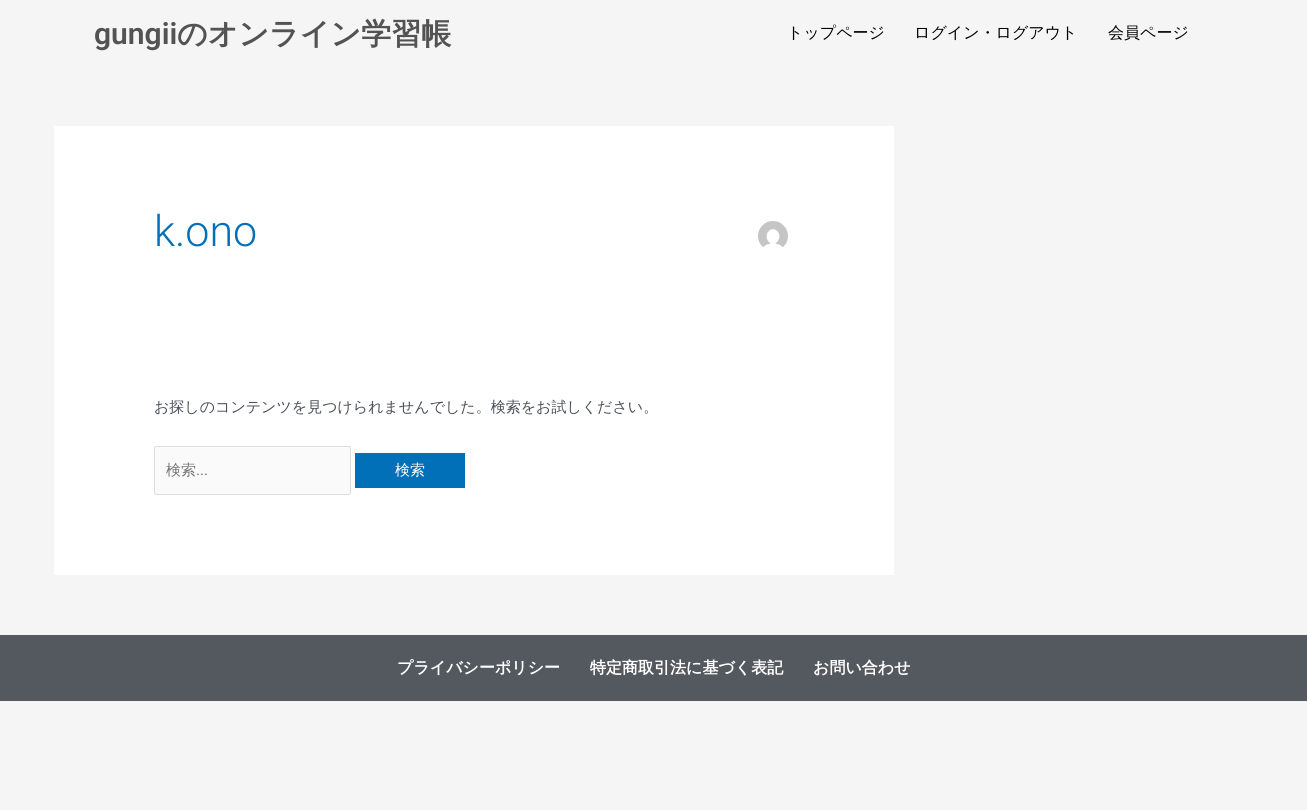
#include <cairo.h>
#include <math.h>
#include <stddef.h>

static cairo_t *ctx;

static void use_color(int r, int g, int b) {
    cairo_set_source_rgb(ctx, r / 255.0, g / 255.0, b / 255.0);
}

static void round_rect(double x, double y, double w, double h, double r) {
    cairo_new_sub_path(ctx);
    cairo_arc(ctx, x + w - r, y + h - r, r, 0, M_PI / 2);
    cairo_arc(ctx, x + r, y + h - r, r, M_PI / 2, M_PI);
    cairo_arc(ctx, x + r, y + r, r, M_PI, 1.5 * M_PI);
    cairo_arc(ctx, x + w - r, y + r, r, 1.5 * M_PI, 2 * M_PI);
    cairo_close_path(ctx);
}

static void picture(const char *path, double x, double y, double w, double h) {
    cairo_surface_t *image = cairo_image_surface_create_from_png(path);
    cairo_save(ctx);
    cairo_set_source_surface(ctx, image, x, y);
    cairo_rectangle(ctx, x, y, w, h);
    cairo_fill(ctx);
    cairo_restore(ctx);
    cairo_surface_destroy(image);
}

int main(void) {
    cairo_surface_t *surface = cairo_image_surface_create(CAIRO_FORMAT_RGB24, 1307, 810);
    ctx = cairo_create(surface);
    cairo_font_options_t *options = cairo_font_options_create();
    cairo_font_options_set_hint_metrics(options, CAIRO_HINT_METRICS_OFF);
    cairo_font_options_set_hint_style(options, CAIRO_HINT_STYLE_NONE);
    cairo_set_font_options(ctx, options);
    cairo_set_miter_limit(ctx, 4);
    use_color(245, 245, 245);
    cairo_paint(ctx);
    cairo_select_font_face(ctx, "Roboto SemiBold", CAIRO_FONT_SLANT_NORMAL, CAIRO_FONT_WEIGHT_NORMAL);
    cairo_set_font_size(ctx, 30);
    use_color(84, 83, 83);
    cairo_move_to(ctx, 94, 44);
    cairo_show_text(ctx, "gungii");
    cairo_select_font_face(ctx, "WenQuanYi Zen Hei", CAIRO_FONT_SLANT_NORMAL, CAIRO_FONT_WEIGHT_BOLD);
    cairo_move_to(ctx, 177, 44);
    cairo_show_text(ctx, "のオンライン学習帳");
    cairo_select_font_face(ctx, "WenQuanYi Zen Hei Medium", CAIRO_FONT_SLANT_NORMAL, CAIRO_FONT_WEIGHT_NORMAL);
    cairo_set_font_size(ctx, 16);
    use_color(0, 0, 0);
    cairo_move_to(ctx, 787, 38);
    cairo_show_text(ctx, "トップページ");
    cairo_move_to(ctx, 914, 38);
    cairo_show_text(ctx, "ログイン・ログアウト");
    cairo_move_to(ctx, 1108, 38);
    cairo_show_text(ctx, "会員ページ");
    use_color(255, 255, 255);
    cairo_rectangle(ctx, 54, 126, 840, 449);
    cairo_fill(ctx);
    cairo_select_font_face(ctx, "Roboto Light", CAIRO_FONT_SLANT_NORMAL, CAIRO_FONT_WEIGHT_NORMAL);
    cairo_set_font_size(ctx, 43);
    use_color(1, 112, 185);
    cairo_move_to(ctx, 154, 246);
    cairo_show_text(ctx, "k.ono");
    picture("img1.png", 758, 221, 30, 27);
    cairo_select_font_face(ctx, "WenQuanYi Zen Hei Medium", CAIRO_FONT_SLANT_NORMAL, CAIRO_FONT_WEIGHT_NORMAL);
    cairo_set_font_size(ctx, 15);
    use_color(75, 79, 88);
    cairo_move_to(ctx, 154, 412);
    cairo_show_text(ctx, "お探しのコンテンツを見つけられませんでした。検索をお試しください。");
    use_color(250, 250, 250);
    round_rect(154.5, 446.5, 196, 48, 1.5);
    cairo_fill_preserve(ctx);
    use_color(221, 221, 221);
    cairo_set_line_width(ctx, 1);
    cairo_stroke(ctx);
    use_color(117, 117, 117);
    cairo_move_to(ctx, 166, 475);
    cairo_show_text(ctx, "検索");
    cairo_select_font_face(ctx, "Roboto", CAIRO_FONT_SLANT_NORMAL, CAIRO_FONT_WEIGHT_NORMAL);
    cairo_move_to(ctx, 196, 475);
    cairo_show_text(ctx, "...");
    use_color(1, 112, 185);
    cairo_rectangle(ctx, 355, 453, 110, 35);
    cairo_fill(ctx);
    cairo_select_font_face(ctx, "WenQuanYi Zen Hei Medium", CAIRO_FONT_SLANT_NORMAL, CAIRO_FONT_WEIGHT_NORMAL);
    use_color(255, 255, 255);
    cairo_move_to(ctx, 395, 475);
    cairo_show_text(ctx, "検索");
    use_color(84, 89, 95);
    cairo_rectangle(ctx, 0, 635, 1307, 66);
    cairo_fill(ctx);
    cairo_select_font_face(ctx, "WenQuanYi Zen Hei", CAIRO_FONT_SLANT_NORMAL, CAIRO_FONT_WEIGHT_BOLD);
    cairo_set_font_size(ctx, 16);
    use_color(255, 255, 255);
    cairo_move_to(ctx, 397, 673);
    cairo_show_text(ctx, "プライバシーポリシー");
    cairo_move_to(ctx, 590, 673);
    cairo_show_text(ctx, "特定商取引法に基づく表記");
    cairo_move_to(ctx, 813, 673);
    cairo_show_text(ctx, "お問い合わせ");
    cairo_surface_write_to_png(surface, "result.png");
    cairo_font_options_destroy(options);
    cairo_destroy(ctx);
    cairo_surface_destroy(surface);
    return 0;
}
